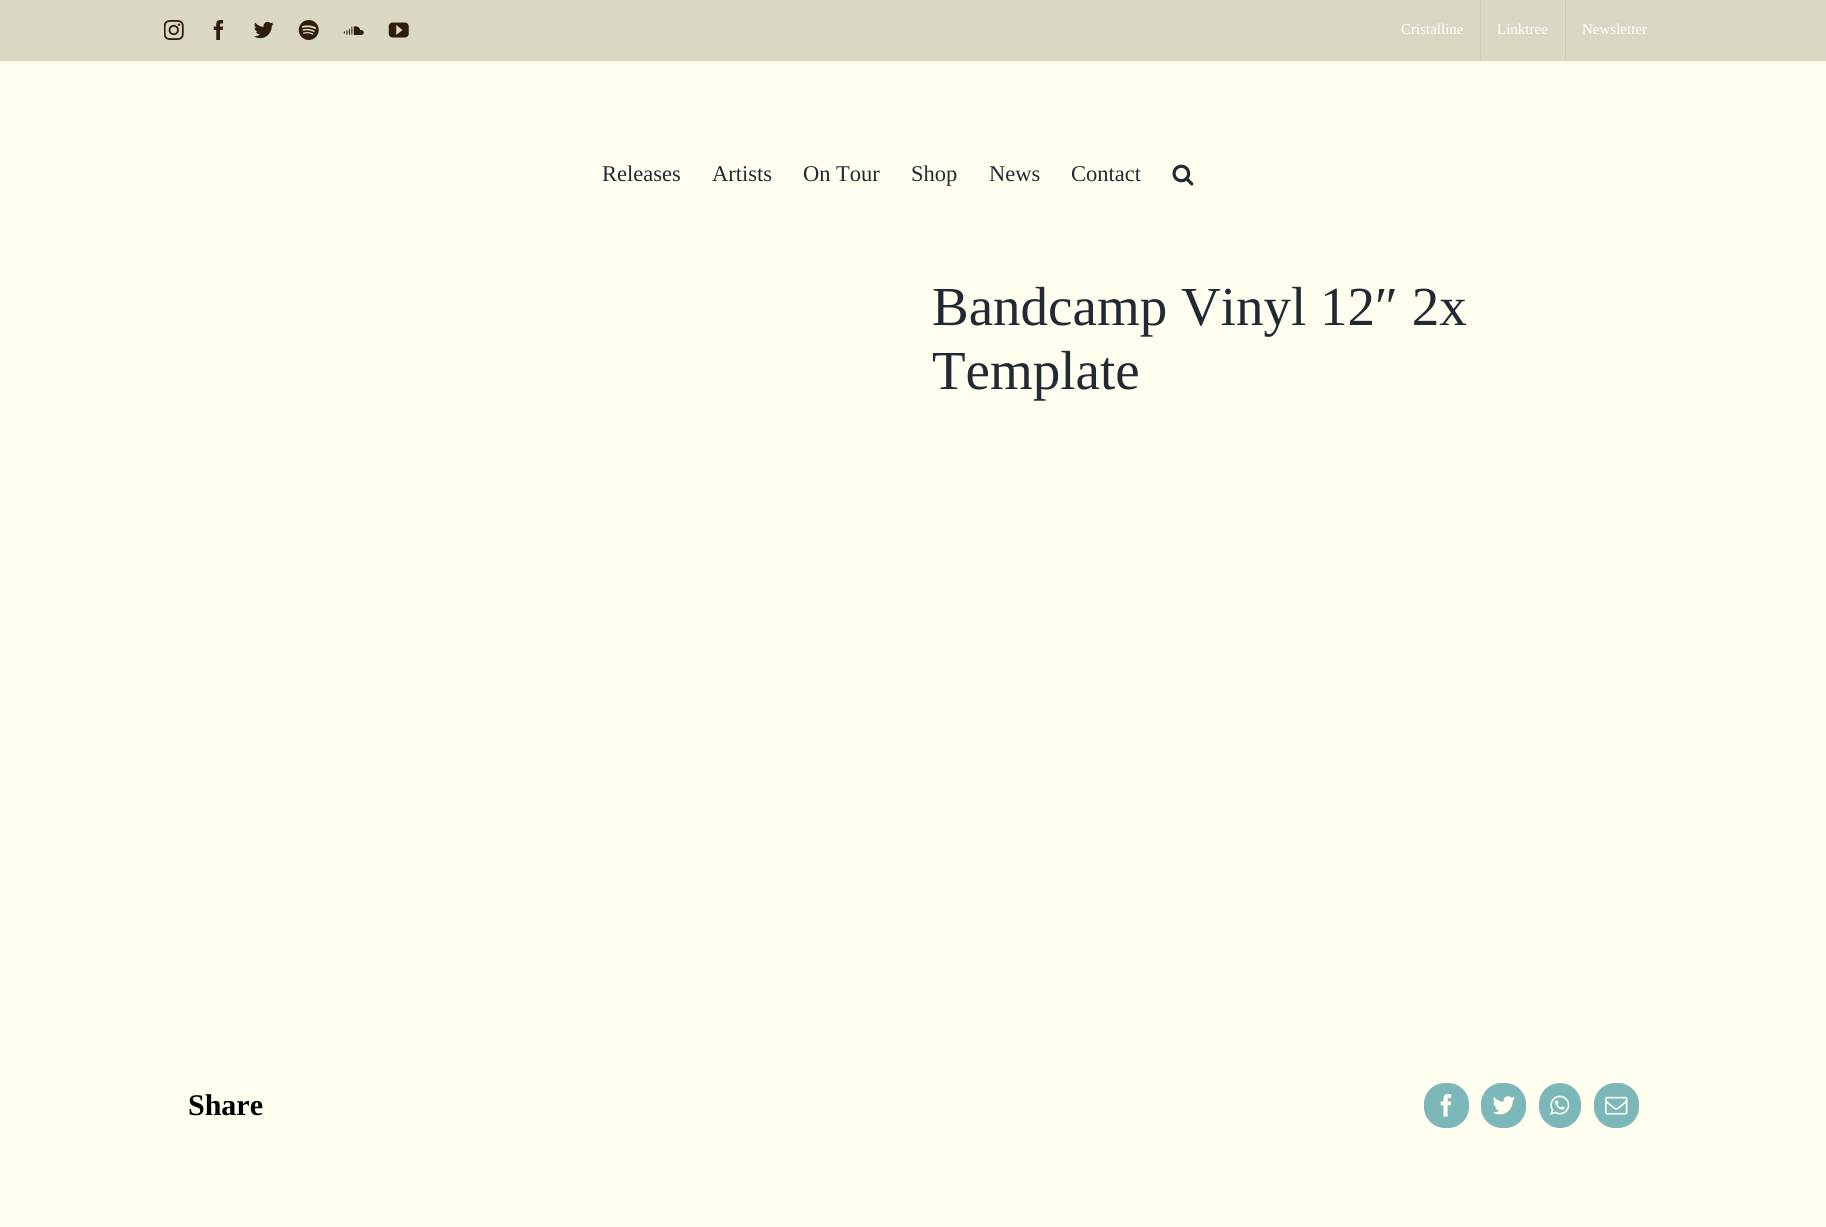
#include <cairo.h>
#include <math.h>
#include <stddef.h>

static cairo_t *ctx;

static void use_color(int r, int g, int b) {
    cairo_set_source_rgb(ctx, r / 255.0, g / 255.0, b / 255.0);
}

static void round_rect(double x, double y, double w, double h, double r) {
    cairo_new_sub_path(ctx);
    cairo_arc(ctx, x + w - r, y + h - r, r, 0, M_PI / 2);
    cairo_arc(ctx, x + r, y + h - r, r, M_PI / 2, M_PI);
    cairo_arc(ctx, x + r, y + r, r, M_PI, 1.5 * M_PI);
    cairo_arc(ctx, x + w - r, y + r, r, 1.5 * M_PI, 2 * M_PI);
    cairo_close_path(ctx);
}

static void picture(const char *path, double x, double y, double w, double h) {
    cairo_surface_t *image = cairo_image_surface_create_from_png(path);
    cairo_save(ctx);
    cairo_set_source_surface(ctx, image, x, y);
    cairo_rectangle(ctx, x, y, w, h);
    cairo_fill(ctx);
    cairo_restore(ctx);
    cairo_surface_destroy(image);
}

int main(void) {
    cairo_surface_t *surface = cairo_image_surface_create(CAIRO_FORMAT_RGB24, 1826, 1227);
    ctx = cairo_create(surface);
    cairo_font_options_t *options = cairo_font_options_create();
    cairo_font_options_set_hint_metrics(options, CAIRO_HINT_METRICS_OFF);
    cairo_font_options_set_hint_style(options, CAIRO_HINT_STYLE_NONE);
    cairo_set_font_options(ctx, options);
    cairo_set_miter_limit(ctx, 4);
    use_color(255, 254, 239);
    cairo_paint(ctx);
    use_color(218, 216, 194);
    cairo_rectangle(ctx, 0, 0, 1826, 61);
    cairo_fill(ctx);
    picture("img1.png", 164, 20, 20, 20);
    picture("img2.png", 213, 20, 11, 20);
    picture("img3.png", 254, 21, 20, 18);
    picture("img4.png", 298, 20, 21, 20);
    picture("img5.png", 343, 26, 21, 9);
    picture("img6.png", 388, 22, 21, 16);
    cairo_select_font_face(ctx, "Liberation Serif", CAIRO_FONT_SLANT_NORMAL, CAIRO_FONT_WEIGHT_NORMAL);
    cairo_set_font_size(ctx, 15);
    use_color(255, 255, 255);
    cairo_move_to(ctx, 1401, 34);
    cairo_show_text(ctx, "Cristalline");
    use_color(205, 203, 182);
    cairo_rectangle(ctx, 1480, 0, 1, 60);
    cairo_fill(ctx);
    use_color(255, 255, 255);
    cairo_move_to(ctx, 1497, 34);
    cairo_show_text(ctx, "Linktree");
    use_color(205, 203, 182);
    cairo_rectangle(ctx, 1565, 0, 1, 60);
    cairo_fill(ctx);
    use_color(255, 255, 255);
    cairo_move_to(ctx, 1582, 34);
    cairo_show_text(ctx, "Newsletter");
    cairo_set_font_size(ctx, 22.5);
    use_color(33, 41, 52);
    cairo_move_to(ctx, 602, 181);
    cairo_show_text(ctx, "Releases");
    cairo_move_to(ctx, 712, 181);
    cairo_show_text(ctx, "Artists");
    cairo_move_to(ctx, 803, 181);
    cairo_show_text(ctx, "On Tour");
    cairo_move_to(ctx, 911, 181);
    cairo_show_text(ctx, "Shop");
    cairo_move_to(ctx, 989, 181);
    cairo_show_text(ctx, "News");
    cairo_move_to(ctx, 1071, 181);
    cairo_show_text(ctx, "Contact");
    picture("img7.png", 1172, 164, 22, 22);
    cairo_set_font_size(ctx, 55);
    cairo_move_to(ctx, 932, 325);
    cairo_show_text(ctx, "Bandcamp Vinyl 12″ 2x");
    cairo_move_to(ctx, 932, 389);
    cairo_show_text(ctx, "Template");
    cairo_select_font_face(ctx, "Liberation Serif", CAIRO_FONT_SLANT_NORMAL, CAIRO_FONT_WEIGHT_BOLD);
    cairo_set_font_size(ctx, 30);
    use_color(0, 0, 0);
    cairo_move_to(ctx, 188, 1115);
    cairo_show_text(ctx, "Share");
    use_color(124, 183, 186);
    round_rect(1424.5, 1083.5, 44, 44, 20.5);
    cairo_fill_preserve(ctx);
    cairo_set_line_width(ctx, 1);
    cairo_stroke(ctx);
    picture("img8.png", 1440, 1094, 12, 23);
    round_rect(1481.5, 1083.5, 44, 44, 20.5);
    cairo_fill_preserve(ctx);
    cairo_stroke(ctx);
    picture("img9.png", 1492, 1096, 23, 19);
    round_rect(1539.5, 1083.5, 41, 44, 20.5);
    cairo_fill_preserve(ctx);
    cairo_stroke(ctx);
    picture("img10.png", 1550, 1095, 20, 20);
    round_rect(1594.5, 1083.5, 44, 44, 20.5);
    cairo_fill_preserve(ctx);
    cairo_stroke(ctx);
    picture("img11.png", 1605, 1096, 23, 19);
    cairo_surface_write_to_png(surface, "result.png");
    cairo_font_options_destroy(options);
    cairo_destroy(ctx);
    cairo_surface_destroy(surface);
    return 0;
}
